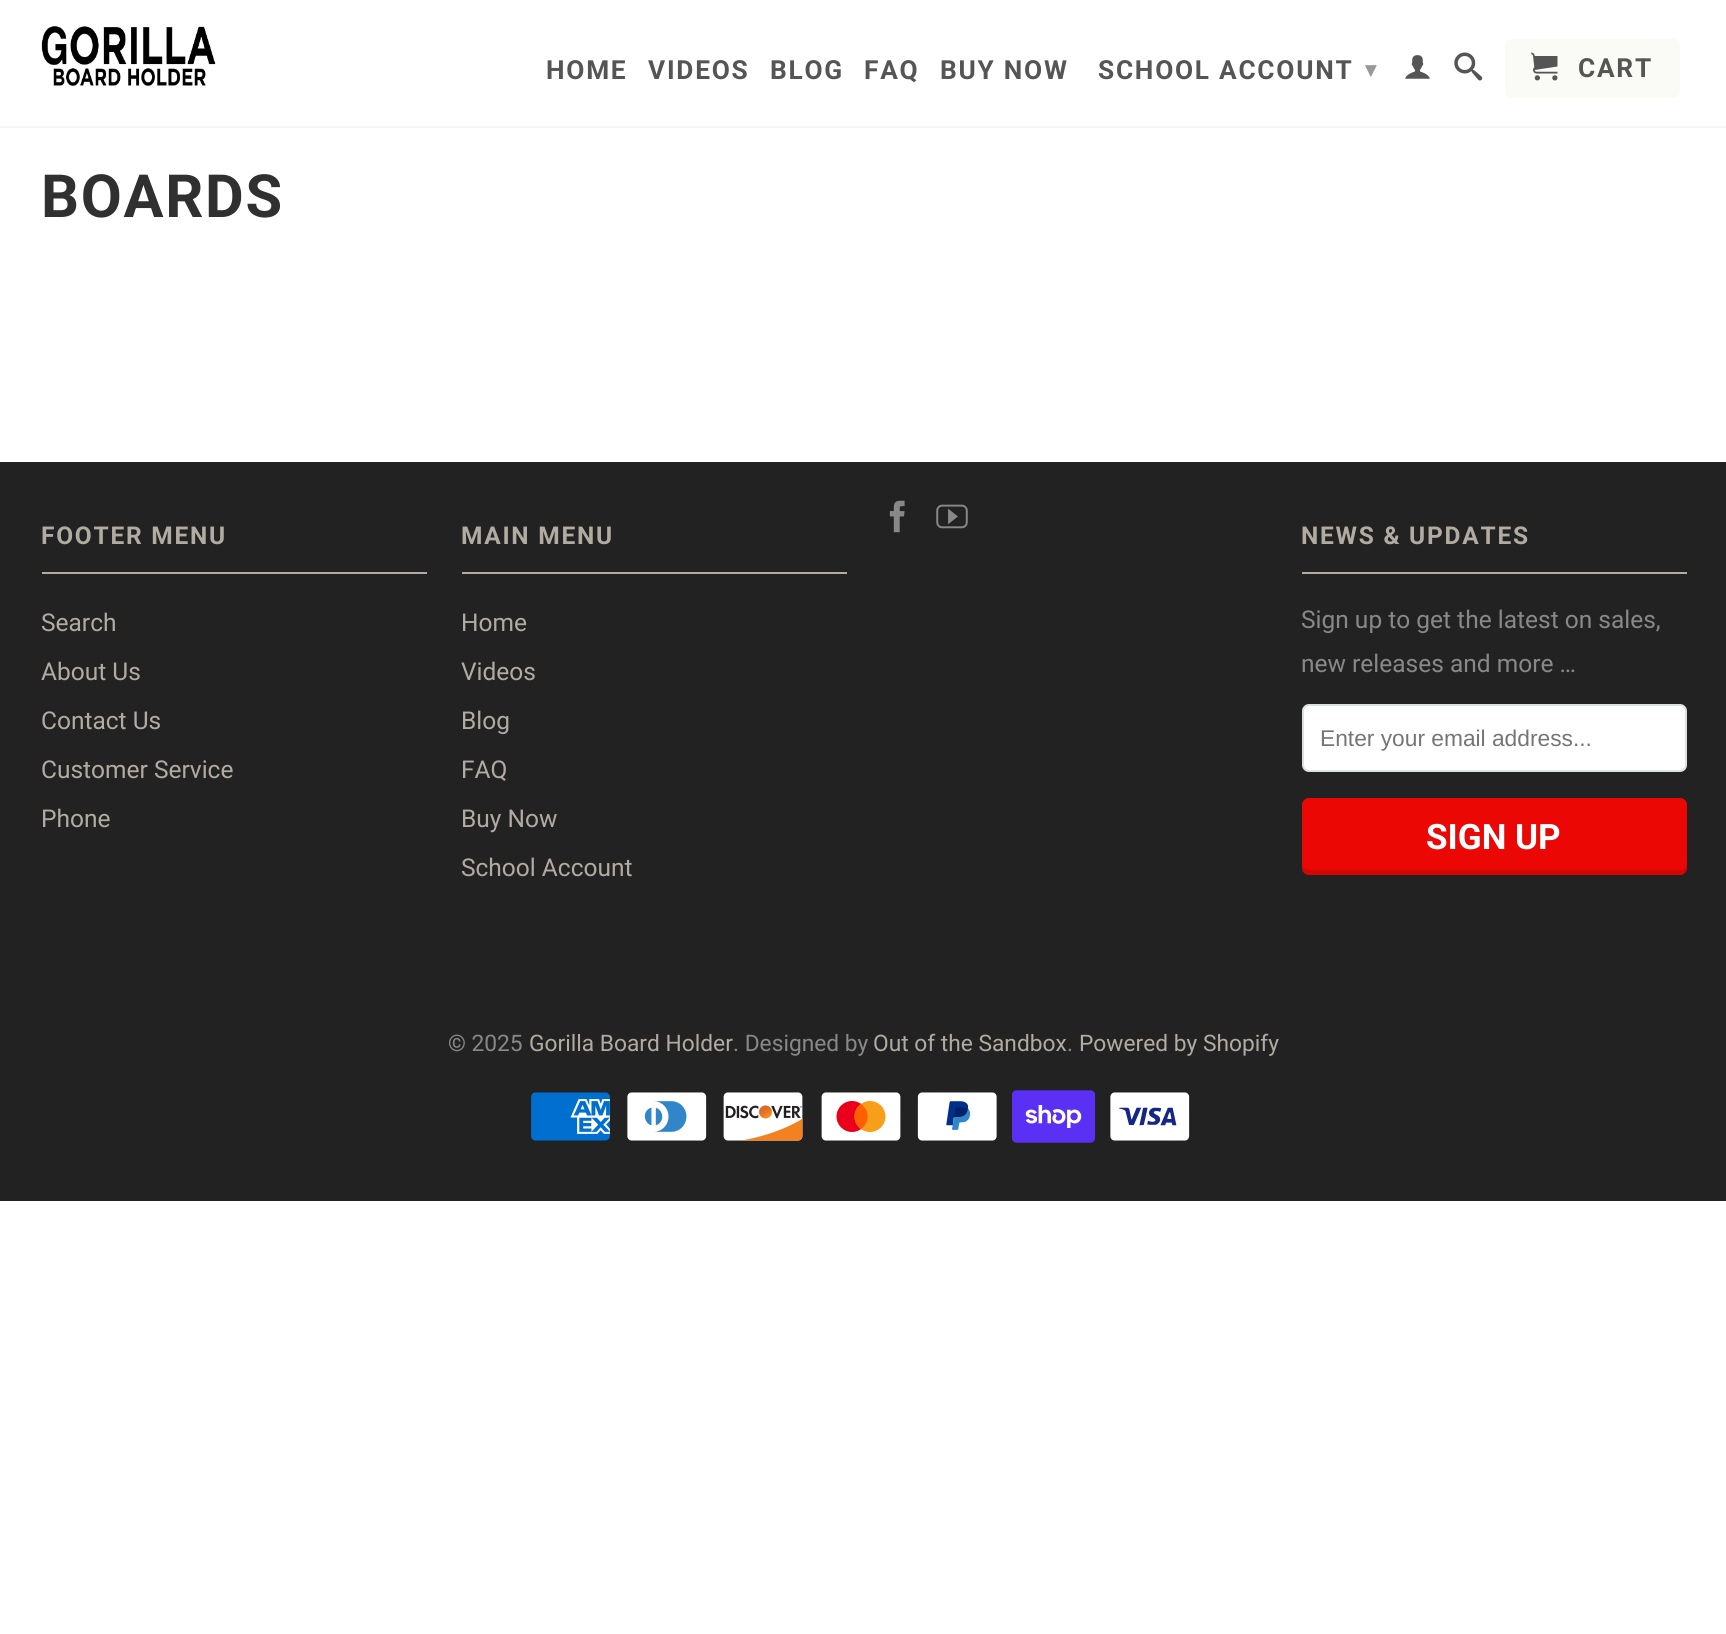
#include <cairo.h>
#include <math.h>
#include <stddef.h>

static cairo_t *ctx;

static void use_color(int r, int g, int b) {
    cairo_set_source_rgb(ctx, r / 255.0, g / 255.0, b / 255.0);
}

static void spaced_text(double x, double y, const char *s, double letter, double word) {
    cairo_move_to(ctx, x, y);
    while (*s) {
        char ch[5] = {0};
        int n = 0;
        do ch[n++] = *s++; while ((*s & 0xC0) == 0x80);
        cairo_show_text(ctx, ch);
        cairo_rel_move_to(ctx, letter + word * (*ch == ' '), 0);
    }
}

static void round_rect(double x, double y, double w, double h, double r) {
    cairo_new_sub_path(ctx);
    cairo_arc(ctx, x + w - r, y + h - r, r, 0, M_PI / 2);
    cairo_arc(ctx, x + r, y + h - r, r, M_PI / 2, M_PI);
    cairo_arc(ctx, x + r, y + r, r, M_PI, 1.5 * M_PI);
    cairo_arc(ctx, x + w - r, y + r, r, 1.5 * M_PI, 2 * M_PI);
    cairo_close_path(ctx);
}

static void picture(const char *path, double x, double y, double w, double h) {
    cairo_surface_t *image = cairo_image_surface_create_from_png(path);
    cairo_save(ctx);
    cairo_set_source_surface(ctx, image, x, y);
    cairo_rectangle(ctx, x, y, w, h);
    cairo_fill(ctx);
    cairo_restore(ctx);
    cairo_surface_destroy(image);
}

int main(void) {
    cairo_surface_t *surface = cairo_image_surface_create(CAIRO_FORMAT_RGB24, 1726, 1634);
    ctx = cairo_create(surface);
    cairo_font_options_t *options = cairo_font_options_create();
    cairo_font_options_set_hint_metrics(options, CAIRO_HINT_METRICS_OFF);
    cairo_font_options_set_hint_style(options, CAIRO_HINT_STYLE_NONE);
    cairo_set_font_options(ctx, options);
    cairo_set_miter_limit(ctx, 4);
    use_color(255, 255, 255);
    cairo_paint(ctx);
    use_color(244, 245, 245);
    cairo_rectangle(ctx, 0, 126, 1726, 2);
    cairo_fill(ctx);
    picture("img1.png", 41, 26, 175, 60);
    cairo_select_font_face(ctx, "Roboto", CAIRO_FONT_SLANT_NORMAL, CAIRO_FONT_WEIGHT_BOLD);
    cairo_set_font_size(ctx, 26.25);
    use_color(85, 85, 85);
    spaced_text(546, 79, "HOME", 1.75, 0);
    spaced_text(648, 79, "VIDEOS", 1.75, 0);
    spaced_text(770, 79, "BLOG", 1.75, 0);
    spaced_text(864, 79, "FAQ", 1.75, 0);
    spaced_text(940, 79, "BUY NOW", 1.75, 0);
    spaced_text(1098, 79, "SCHOOL ACCOUNT", 1.75, 0);
    cairo_select_font_face(ctx, "DejaVu Sans", CAIRO_FONT_SLANT_NORMAL, CAIRO_FONT_WEIGHT_BOLD);
    cairo_set_font_size(ctx, 22);
    use_color(153, 153, 153);
    spaced_text(1365, 77, "▾", 1.75, 0);
    picture("img2.png", 1405, 55, 25, 24);
    picture("img3.png", 1454, 52, 29, 29);
    use_color(250, 250, 246);
    round_rect(1505, 39, 175, 59, 7);
    cairo_fill(ctx);
    picture("img4.png", 1531, 52, 27, 29);
    cairo_select_font_face(ctx, "Roboto", CAIRO_FONT_SLANT_NORMAL, CAIRO_FONT_WEIGHT_BOLD);
    cairo_set_font_size(ctx, 26.25);
    use_color(85, 85, 85);
    spaced_text(1578, 77, "CART", 1.75, 0);
    cairo_set_font_size(ctx, 59.5);
    use_color(48, 48, 48);
    spaced_text(41, 217, "BOARDS", 1.75, 0);
    use_color(34, 34, 34);
    cairo_rectangle(ctx, 0, 462, 1726, 739);
    cairo_fill(ctx);
    picture("img5.png", 889, 500, 16, 33);
    picture("img6.png", 936, 504, 32, 25);
    use_color(177, 172, 161);
    cairo_rectangle(ctx, 42, 572, 385, 2);
    cairo_fill(ctx);
    cairo_set_font_size(ctx, 24.5);
    spaced_text(41, 544, "FOOTER MENU", 1.75, 0);
    cairo_select_font_face(ctx, "Roboto", CAIRO_FONT_SLANT_NORMAL, CAIRO_FONT_WEIGHT_NORMAL);
    cairo_move_to(ctx, 41, 631);
    cairo_show_text(ctx, "Search");
    cairo_move_to(ctx, 41, 680);
    cairo_show_text(ctx, "About Us");
    cairo_move_to(ctx, 41, 729);
    cairo_show_text(ctx, "Contact Us");
    cairo_move_to(ctx, 41, 778);
    cairo_show_text(ctx, "Customer Service");
    cairo_move_to(ctx, 41, 827);
    cairo_show_text(ctx, "Phone");
    cairo_rectangle(ctx, 462, 572, 385, 2);
    cairo_fill(ctx);
    cairo_select_font_face(ctx, "Roboto", CAIRO_FONT_SLANT_NORMAL, CAIRO_FONT_WEIGHT_BOLD);
    spaced_text(461, 544, "MAIN MENU", 1.75, 0);
    cairo_select_font_face(ctx, "Roboto", CAIRO_FONT_SLANT_NORMAL, CAIRO_FONT_WEIGHT_NORMAL);
    cairo_move_to(ctx, 461, 631);
    cairo_show_text(ctx, "Home");
    cairo_move_to(ctx, 461, 680);
    cairo_show_text(ctx, "Videos");
    cairo_move_to(ctx, 461, 729);
    cairo_show_text(ctx, "Blog");
    cairo_move_to(ctx, 461, 778);
    cairo_show_text(ctx, "FAQ");
    cairo_move_to(ctx, 461, 827);
    cairo_show_text(ctx, "Buy Now");
    cairo_move_to(ctx, 461, 876);
    cairo_show_text(ctx, "School Account");
    cairo_rectangle(ctx, 1302, 572, 385, 2);
    cairo_fill(ctx);
    cairo_select_font_face(ctx, "Roboto", CAIRO_FONT_SLANT_NORMAL, CAIRO_FONT_WEIGHT_BOLD);
    spaced_text(1301, 544, "NEWS & UPDATES", 1.75, 0);
    cairo_select_font_face(ctx, "Roboto", CAIRO_FONT_SLANT_NORMAL, CAIRO_FONT_WEIGHT_NORMAL);
    use_color(136, 136, 136);
    cairo_move_to(ctx, 1301, 628);
    cairo_show_text(ctx, "Sign up to get the latest on sales,");
    cairo_move_to(ctx, 1301, 672);
    cairo_show_text(ctx, "new releases and more …");
    use_color(255, 255, 255);
    round_rect(1303, 705, 383, 66, 6);
    cairo_fill_preserve(ctx);
    use_color(220, 224, 224);
    cairo_stroke(ctx);
    cairo_select_font_face(ctx, "Liberation Sans", CAIRO_FONT_SLANT_NORMAL, CAIRO_FONT_WEIGHT_NORMAL);
    cairo_set_font_size(ctx, 22.75);
    use_color(117, 117, 117);
    cairo_move_to(ctx, 1320, 746);
    cairo_show_text(ctx, "Enter your email address...");
    use_color(235, 7, 3);
    round_rect(1302, 798, 385, 77, 7);
    cairo_fill(ctx);
    cairo_set_source_rgba(ctx, 0, 0, 0, 0.1);
    cairo_new_path(ctx);
    cairo_move_to(ctx, 1302, 863);
    cairo_line_to(ctx, 1302, 868);
    cairo_curve_to(ctx, 1302, 872, 1305, 875, 1309, 875);
    cairo_line_to(ctx, 1680, 875);
    cairo_curve_to(ctx, 1684, 875, 1687, 872, 1687, 868);
    cairo_line_to(ctx, 1687, 863);
    cairo_curve_to(ctx, 1687, 867, 1684, 870, 1680, 870);
    cairo_line_to(ctx, 1309, 870);
    cairo_curve_to(ctx, 1305, 870, 1302, 867, 1302, 863);
    cairo_close_path(ctx);
    cairo_fill(ctx);
    cairo_select_font_face(ctx, "Roboto", CAIRO_FONT_SLANT_NORMAL, CAIRO_FONT_WEIGHT_BOLD);
    cairo_set_font_size(ctx, 35);
    use_color(255, 255, 255);
    cairo_move_to(ctx, 1426, 849);
    cairo_show_text(ctx, "SIGN UP");
    cairo_select_font_face(ctx, "Roboto", CAIRO_FONT_SLANT_NORMAL, CAIRO_FONT_WEIGHT_NORMAL);
    cairo_set_font_size(ctx, 22.75);
    use_color(136, 136, 136);
    cairo_move_to(ctx, 448, 1051);
    cairo_show_text(ctx, "© 2025");
    use_color(177, 172, 161);
    cairo_move_to(ctx, 529, 1051);
    cairo_show_text(ctx, "Gorilla Board Holder");
    use_color(136, 136, 136);
    cairo_move_to(ctx, 733, 1051);
    cairo_show_text(ctx, ". Designed by");
    use_color(177, 172, 161);
    cairo_move_to(ctx, 873, 1051);
    cairo_show_text(ctx, "Out of the Sandbox");
    use_color(136, 136, 136);
    cairo_move_to(ctx, 1067, 1051);
    cairo_show_text(ctx, ".");
    use_color(177, 172, 161);
    cairo_move_to(ctx, 1079, 1051);
    cairo_show_text(ctx, "Powered by Shopify");
    picture("img7.png", 531, 1092, 79, 49);
    picture("img8.png", 627, 1092, 80, 49);
    picture("img9.png", 723, 1092, 80, 49);
    picture("img10.png", 821, 1092, 80, 49);
    picture("img11.png", 917, 1092, 80, 49);
    picture("img12.png", 1012, 1090, 84, 53);
    picture("img13.png", 1110, 1092, 80, 49);
    cairo_surface_write_to_png(surface, "result.png");
    cairo_font_options_destroy(options);
    cairo_destroy(ctx);
    cairo_surface_destroy(surface);
    return 0;
}
